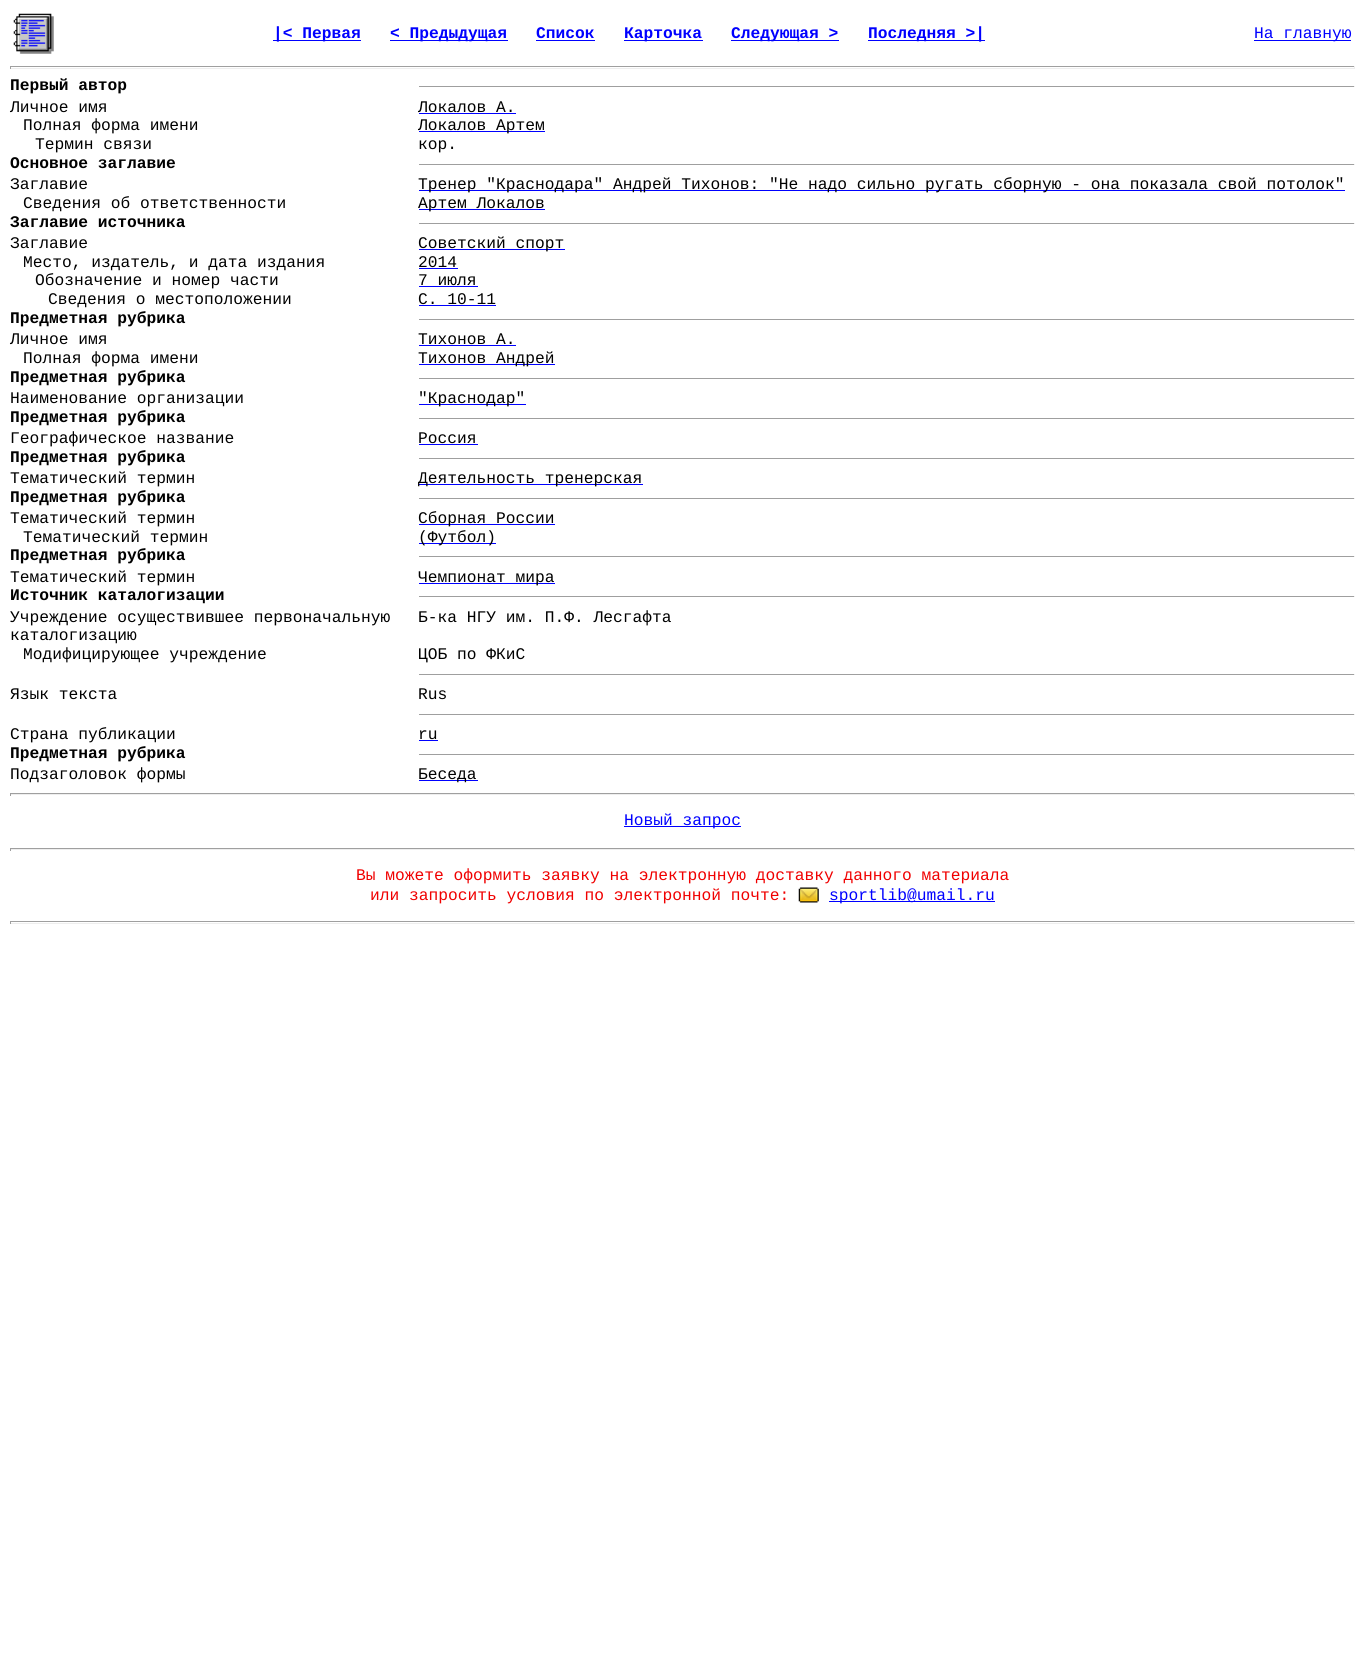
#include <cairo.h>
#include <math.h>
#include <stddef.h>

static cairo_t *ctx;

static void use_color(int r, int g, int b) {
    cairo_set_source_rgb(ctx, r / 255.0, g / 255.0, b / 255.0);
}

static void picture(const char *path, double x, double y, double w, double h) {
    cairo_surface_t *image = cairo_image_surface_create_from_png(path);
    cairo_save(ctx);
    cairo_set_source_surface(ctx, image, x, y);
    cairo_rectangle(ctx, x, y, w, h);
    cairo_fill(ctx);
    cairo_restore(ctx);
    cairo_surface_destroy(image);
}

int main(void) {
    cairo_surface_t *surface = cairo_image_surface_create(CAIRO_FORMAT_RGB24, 1364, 1662);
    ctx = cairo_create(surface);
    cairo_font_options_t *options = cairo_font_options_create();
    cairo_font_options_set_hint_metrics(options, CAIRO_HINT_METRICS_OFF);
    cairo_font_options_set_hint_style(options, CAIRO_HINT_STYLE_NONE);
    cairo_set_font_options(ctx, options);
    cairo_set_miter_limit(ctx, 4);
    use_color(255, 255, 255);
    cairo_paint(ctx);
    picture("img1.png", 13, 13, 41, 41);
    use_color(0, 0, 255);
    cairo_rectangle(ctx, 273, 40, 88, 1);
    cairo_fill(ctx);
    cairo_select_font_face(ctx, "Liberation Mono", CAIRO_FONT_SLANT_NORMAL, CAIRO_FONT_WEIGHT_BOLD);
    cairo_set_font_size(ctx, 16.25);
    cairo_move_to(ctx, 273, 38);
    cairo_show_text(ctx, "|< Первая");
    cairo_rectangle(ctx, 390, 40, 118, 1);
    cairo_fill(ctx);
    cairo_move_to(ctx, 390, 38);
    cairo_show_text(ctx, "< Предыдущая");
    cairo_move_to(ctx, 536, 38);
    cairo_show_text(ctx, "Список");
    cairo_rectangle(ctx, 536, 40, 59, 1);
    cairo_fill(ctx);
    cairo_rectangle(ctx, 624, 40, 79, 1);
    cairo_fill(ctx);
    cairo_move_to(ctx, 624, 38);
    cairo_show_text(ctx, "Карточка");
    cairo_rectangle(ctx, 731, 40, 108, 1);
    cairo_fill(ctx);
    cairo_move_to(ctx, 731, 38);
    cairo_show_text(ctx, "Следующая >");
    cairo_rectangle(ctx, 868, 40, 117, 1);
    cairo_fill(ctx);
    cairo_move_to(ctx, 868, 38);
    cairo_show_text(ctx, "Последняя >|");
    cairo_rectangle(ctx, 1254, 40, 97, 1);
    cairo_fill(ctx);
    cairo_select_font_face(ctx, "Liberation Mono", CAIRO_FONT_SLANT_NORMAL, CAIRO_FONT_WEIGHT_NORMAL);
    cairo_move_to(ctx, 1254, 38);
    cairo_show_text(ctx, "На главную");
    use_color(159, 159, 159);
    cairo_rectangle(ctx, 10, 66, 1345, 1);
    cairo_fill(ctx);
    use_color(238, 238, 238);
    cairo_rectangle(ctx, 1354, 66, 1, 3);
    cairo_fill(ctx);
    cairo_rectangle(ctx, 10, 68, 1345, 1);
    cairo_fill(ctx);
    use_color(159, 159, 159);
    cairo_rectangle(ctx, 10, 66, 1, 3);
    cairo_fill(ctx);
    cairo_select_font_face(ctx, "Liberation Mono", CAIRO_FONT_SLANT_NORMAL, CAIRO_FONT_WEIGHT_BOLD);
    use_color(0, 0, 0);
    cairo_move_to(ctx, 10, 90);
    cairo_show_text(ctx, "Первый автор");
    use_color(159, 159, 159);
    cairo_rectangle(ctx, 419, 86, 936, 1);
    cairo_fill(ctx);
    use_color(238, 238, 238);
    cairo_rectangle(ctx, 1354, 86, 1, 1);
    cairo_fill(ctx);
    cairo_select_font_face(ctx, "Liberation Mono", CAIRO_FONT_SLANT_NORMAL, CAIRO_FONT_WEIGHT_NORMAL);
    use_color(0, 0, 0);
    cairo_move_to(ctx, 10, 112);
    cairo_show_text(ctx, "Личное имя");
    cairo_move_to(ctx, 418, 112);
    cairo_show_text(ctx, "Локалов А.");
    use_color(0, 0, 255);
    cairo_rectangle(ctx, 419, 113, 97, 1);
    cairo_fill(ctx);
    use_color(0, 0, 0);
    cairo_move_to(ctx, 23, 130);
    cairo_show_text(ctx, "Полная форма имени");
    use_color(0, 0, 255);
    cairo_rectangle(ctx, 419, 131, 126, 1);
    cairo_fill(ctx);
    use_color(0, 0, 0);
    cairo_move_to(ctx, 418, 130);
    cairo_show_text(ctx, "Локалов Артем");
    cairo_move_to(ctx, 35, 149);
    cairo_show_text(ctx, "Термин связи");
    cairo_move_to(ctx, 418, 149);
    cairo_show_text(ctx, "кор.");
    cairo_select_font_face(ctx, "Liberation Mono", CAIRO_FONT_SLANT_NORMAL, CAIRO_FONT_WEIGHT_BOLD);
    cairo_move_to(ctx, 10, 168);
    cairo_show_text(ctx, "Основное заглавие");
    use_color(159, 159, 159);
    cairo_rectangle(ctx, 419, 164, 936, 1);
    cairo_fill(ctx);
    use_color(238, 238, 238);
    cairo_rectangle(ctx, 1354, 164, 1, 1);
    cairo_fill(ctx);
    cairo_select_font_face(ctx, "Liberation Mono", CAIRO_FONT_SLANT_NORMAL, CAIRO_FONT_WEIGHT_NORMAL);
    use_color(0, 0, 0);
    cairo_move_to(ctx, 10, 189);
    cairo_show_text(ctx, "Заглавие");
    use_color(0, 0, 255);
    cairo_rectangle(ctx, 419, 190, 926, 1);
    cairo_fill(ctx);
    use_color(0, 0, 0);
    cairo_move_to(ctx, 418, 189);
    cairo_show_text(ctx, "Тренер \"Краснодара\" Андрей Тихонов: \"Не надо сильно ругать сборную - она показала свой потолок\"");
    cairo_move_to(ctx, 23, 208);
    cairo_show_text(ctx, "Сведения об ответственности");
    use_color(0, 0, 255);
    cairo_rectangle(ctx, 419, 209, 126, 1);
    cairo_fill(ctx);
    use_color(0, 0, 0);
    cairo_move_to(ctx, 418, 208);
    cairo_show_text(ctx, "Артем Локалов");
    cairo_select_font_face(ctx, "Liberation Mono", CAIRO_FONT_SLANT_NORMAL, CAIRO_FONT_WEIGHT_BOLD);
    cairo_move_to(ctx, 10, 227);
    cairo_show_text(ctx, "Заглавие источника");
    use_color(159, 159, 159);
    cairo_rectangle(ctx, 419, 223, 936, 1);
    cairo_fill(ctx);
    use_color(238, 238, 238);
    cairo_rectangle(ctx, 1354, 223, 1, 1);
    cairo_fill(ctx);
    cairo_select_font_face(ctx, "Liberation Mono", CAIRO_FONT_SLANT_NORMAL, CAIRO_FONT_WEIGHT_NORMAL);
    use_color(0, 0, 0);
    cairo_move_to(ctx, 10, 248);
    cairo_show_text(ctx, "Заглавие");
    use_color(0, 0, 255);
    cairo_rectangle(ctx, 419, 249, 146, 1);
    cairo_fill(ctx);
    use_color(0, 0, 0);
    cairo_move_to(ctx, 418, 248);
    cairo_show_text(ctx, "Советский спорт");
    cairo_move_to(ctx, 23, 267);
    cairo_show_text(ctx, "Место, издатель, и дата издания");
    cairo_move_to(ctx, 418, 267);
    cairo_show_text(ctx, "2014");
    use_color(0, 0, 255);
    cairo_rectangle(ctx, 419, 268, 39, 1);
    cairo_fill(ctx);
    use_color(0, 0, 0);
    cairo_move_to(ctx, 35, 285);
    cairo_show_text(ctx, "Обозначение и номер части");
    cairo_move_to(ctx, 418, 285);
    cairo_show_text(ctx, "7 июля");
    use_color(0, 0, 255);
    cairo_rectangle(ctx, 419, 286, 59, 1);
    cairo_fill(ctx);
    use_color(0, 0, 0);
    cairo_move_to(ctx, 48, 304);
    cairo_show_text(ctx, "Сведения о местоположении");
    cairo_move_to(ctx, 418, 304);
    cairo_show_text(ctx, "С. 10-11");
    use_color(0, 0, 255);
    cairo_rectangle(ctx, 419, 305, 77, 1);
    cairo_fill(ctx);
    cairo_select_font_face(ctx, "Liberation Mono", CAIRO_FONT_SLANT_NORMAL, CAIRO_FONT_WEIGHT_BOLD);
    use_color(0, 0, 0);
    cairo_move_to(ctx, 10, 323);
    cairo_show_text(ctx, "Предметная рубрика");
    use_color(159, 159, 159);
    cairo_rectangle(ctx, 419, 319, 936, 1);
    cairo_fill(ctx);
    use_color(238, 238, 238);
    cairo_rectangle(ctx, 1354, 319, 1, 1);
    cairo_fill(ctx);
    cairo_select_font_face(ctx, "Liberation Mono", CAIRO_FONT_SLANT_NORMAL, CAIRO_FONT_WEIGHT_NORMAL);
    use_color(0, 0, 0);
    cairo_move_to(ctx, 10, 344);
    cairo_show_text(ctx, "Личное имя");
    cairo_move_to(ctx, 418, 344);
    cairo_show_text(ctx, "Тихонов А.");
    use_color(0, 0, 255);
    cairo_rectangle(ctx, 419, 345, 97, 1);
    cairo_fill(ctx);
    use_color(0, 0, 0);
    cairo_move_to(ctx, 23, 363);
    cairo_show_text(ctx, "Полная форма имени");
    use_color(0, 0, 255);
    cairo_rectangle(ctx, 419, 364, 136, 1);
    cairo_fill(ctx);
    use_color(0, 0, 0);
    cairo_move_to(ctx, 418, 363);
    cairo_show_text(ctx, "Тихонов Андрей");
    cairo_select_font_face(ctx, "Liberation Mono", CAIRO_FONT_SLANT_NORMAL, CAIRO_FONT_WEIGHT_BOLD);
    cairo_move_to(ctx, 10, 382);
    cairo_show_text(ctx, "Предметная рубрика");
    use_color(159, 159, 159);
    cairo_rectangle(ctx, 419, 378, 936, 1);
    cairo_fill(ctx);
    use_color(238, 238, 238);
    cairo_rectangle(ctx, 1354, 378, 1, 1);
    cairo_fill(ctx);
    cairo_select_font_face(ctx, "Liberation Mono", CAIRO_FONT_SLANT_NORMAL, CAIRO_FONT_WEIGHT_NORMAL);
    use_color(0, 0, 0);
    cairo_move_to(ctx, 10, 403);
    cairo_show_text(ctx, "Наименование организации");
    use_color(0, 0, 255);
    cairo_rectangle(ctx, 419, 404, 107, 1);
    cairo_fill(ctx);
    use_color(0, 0, 0);
    cairo_move_to(ctx, 418, 403);
    cairo_show_text(ctx, "\"Краснодар\"");
    cairo_select_font_face(ctx, "Liberation Mono", CAIRO_FONT_SLANT_NORMAL, CAIRO_FONT_WEIGHT_BOLD);
    cairo_move_to(ctx, 10, 422);
    cairo_show_text(ctx, "Предметная рубрика");
    use_color(159, 159, 159);
    cairo_rectangle(ctx, 419, 418, 936, 1);
    cairo_fill(ctx);
    use_color(238, 238, 238);
    cairo_rectangle(ctx, 1354, 418, 1, 1);
    cairo_fill(ctx);
    cairo_select_font_face(ctx, "Liberation Mono", CAIRO_FONT_SLANT_NORMAL, CAIRO_FONT_WEIGHT_NORMAL);
    use_color(0, 0, 0);
    cairo_move_to(ctx, 10, 443);
    cairo_show_text(ctx, "Географическое название");
    cairo_move_to(ctx, 418, 443);
    cairo_show_text(ctx, "Россия");
    use_color(0, 0, 255);
    cairo_rectangle(ctx, 419, 444, 59, 1);
    cairo_fill(ctx);
    cairo_select_font_face(ctx, "Liberation Mono", CAIRO_FONT_SLANT_NORMAL, CAIRO_FONT_WEIGHT_BOLD);
    use_color(0, 0, 0);
    cairo_move_to(ctx, 10, 462);
    cairo_show_text(ctx, "Предметная рубрика");
    use_color(159, 159, 159);
    cairo_rectangle(ctx, 419, 458, 936, 1);
    cairo_fill(ctx);
    use_color(238, 238, 238);
    cairo_rectangle(ctx, 1354, 458, 1, 1);
    cairo_fill(ctx);
    cairo_select_font_face(ctx, "Liberation Mono", CAIRO_FONT_SLANT_NORMAL, CAIRO_FONT_WEIGHT_NORMAL);
    use_color(0, 0, 0);
    cairo_move_to(ctx, 10, 483);
    cairo_show_text(ctx, "Тематический термин");
    use_color(0, 0, 255);
    cairo_rectangle(ctx, 419, 484, 224, 1);
    cairo_fill(ctx);
    use_color(0, 0, 0);
    cairo_move_to(ctx, 418, 483);
    cairo_show_text(ctx, "Деятельность тренерская");
    cairo_select_font_face(ctx, "Liberation Mono", CAIRO_FONT_SLANT_NORMAL, CAIRO_FONT_WEIGHT_BOLD);
    cairo_move_to(ctx, 10, 502);
    cairo_show_text(ctx, "Предметная рубрика");
    use_color(159, 159, 159);
    cairo_rectangle(ctx, 419, 498, 936, 1);
    cairo_fill(ctx);
    use_color(238, 238, 238);
    cairo_rectangle(ctx, 1354, 498, 1, 1);
    cairo_fill(ctx);
    cairo_select_font_face(ctx, "Liberation Mono", CAIRO_FONT_SLANT_NORMAL, CAIRO_FONT_WEIGHT_NORMAL);
    use_color(0, 0, 0);
    cairo_move_to(ctx, 10, 523);
    cairo_show_text(ctx, "Тематический термин");
    use_color(0, 0, 255);
    cairo_rectangle(ctx, 419, 524, 136, 1);
    cairo_fill(ctx);
    use_color(0, 0, 0);
    cairo_move_to(ctx, 418, 523);
    cairo_show_text(ctx, "Сборная России");
    cairo_move_to(ctx, 23, 542);
    cairo_show_text(ctx, "Тематический термин");
    use_color(0, 0, 255);
    cairo_rectangle(ctx, 419, 543, 77, 1);
    cairo_fill(ctx);
    use_color(0, 0, 0);
    cairo_move_to(ctx, 418, 542);
    cairo_show_text(ctx, "(Футбол)");
    cairo_select_font_face(ctx, "Liberation Mono", CAIRO_FONT_SLANT_NORMAL, CAIRO_FONT_WEIGHT_BOLD);
    cairo_move_to(ctx, 10, 560);
    cairo_show_text(ctx, "Предметная рубрика");
    use_color(159, 159, 159);
    cairo_rectangle(ctx, 419, 556, 936, 1);
    cairo_fill(ctx);
    use_color(238, 238, 238);
    cairo_rectangle(ctx, 1354, 556, 1, 1);
    cairo_fill(ctx);
    cairo_select_font_face(ctx, "Liberation Mono", CAIRO_FONT_SLANT_NORMAL, CAIRO_FONT_WEIGHT_NORMAL);
    use_color(0, 0, 0);
    cairo_move_to(ctx, 10, 582);
    cairo_show_text(ctx, "Тематический термин");
    use_color(0, 0, 255);
    cairo_rectangle(ctx, 419, 583, 136, 1);
    cairo_fill(ctx);
    use_color(0, 0, 0);
    cairo_move_to(ctx, 418, 582);
    cairo_show_text(ctx, "Чемпионат мира");
    cairo_select_font_face(ctx, "Liberation Mono", CAIRO_FONT_SLANT_NORMAL, CAIRO_FONT_WEIGHT_BOLD);
    cairo_move_to(ctx, 10, 600);
    cairo_show_text(ctx, "Источник каталогизации");
    use_color(159, 159, 159);
    cairo_rectangle(ctx, 419, 596, 936, 1);
    cairo_fill(ctx);
    use_color(238, 238, 238);
    cairo_rectangle(ctx, 1354, 596, 1, 1);
    cairo_fill(ctx);
    cairo_select_font_face(ctx, "Liberation Mono", CAIRO_FONT_SLANT_NORMAL, CAIRO_FONT_WEIGHT_NORMAL);
    use_color(0, 0, 0);
    cairo_move_to(ctx, 10, 622);
    cairo_show_text(ctx, "Учреждение осуществившее первоначальную");
    cairo_move_to(ctx, 10, 640);
    cairo_show_text(ctx, "каталогизацию");
    cairo_move_to(ctx, 418, 622);
    cairo_show_text(ctx, "Б-ка НГУ им. П.Ф. Лесгафта");
    cairo_move_to(ctx, 23, 659);
    cairo_show_text(ctx, "Модифицирующее учреждение");
    cairo_move_to(ctx, 418, 659);
    cairo_show_text(ctx, "ЦОБ по ФКиС");
    use_color(159, 159, 159);
    cairo_rectangle(ctx, 419, 674, 936, 1);
    cairo_fill(ctx);
    use_color(238, 238, 238);
    cairo_rectangle(ctx, 1354, 674, 1, 1);
    cairo_fill(ctx);
    use_color(0, 0, 0);
    cairo_move_to(ctx, 10, 699);
    cairo_show_text(ctx, "Язык текста");
    cairo_move_to(ctx, 418, 699);
    cairo_show_text(ctx, "Rus");
    use_color(159, 159, 159);
    cairo_rectangle(ctx, 419, 714, 936, 1);
    cairo_fill(ctx);
    use_color(238, 238, 238);
    cairo_rectangle(ctx, 1354, 714, 1, 1);
    cairo_fill(ctx);
    use_color(0, 0, 0);
    cairo_move_to(ctx, 10, 739);
    cairo_show_text(ctx, "Страна публикации");
    cairo_move_to(ctx, 418, 739);
    cairo_show_text(ctx, "ru");
    use_color(0, 0, 255);
    cairo_rectangle(ctx, 419, 740, 19, 1);
    cairo_fill(ctx);
    cairo_select_font_face(ctx, "Liberation Mono", CAIRO_FONT_SLANT_NORMAL, CAIRO_FONT_WEIGHT_BOLD);
    use_color(0, 0, 0);
    cairo_move_to(ctx, 10, 758);
    cairo_show_text(ctx, "Предметная рубрика");
    use_color(159, 159, 159);
    cairo_rectangle(ctx, 419, 754, 936, 1);
    cairo_fill(ctx);
    use_color(238, 238, 238);
    cairo_rectangle(ctx, 1354, 754, 1, 1);
    cairo_fill(ctx);
    cairo_select_font_face(ctx, "Liberation Mono", CAIRO_FONT_SLANT_NORMAL, CAIRO_FONT_WEIGHT_NORMAL);
    use_color(0, 0, 0);
    cairo_move_to(ctx, 10, 779);
    cairo_show_text(ctx, "Подзаголовок формы");
    use_color(0, 0, 255);
    cairo_rectangle(ctx, 419, 780, 59, 1);
    cairo_fill(ctx);
    use_color(0, 0, 0);
    cairo_move_to(ctx, 418, 779);
    cairo_show_text(ctx, "Беседа");
    use_color(159, 159, 159);
    cairo_rectangle(ctx, 10, 793, 1345, 1);
    cairo_fill(ctx);
    use_color(238, 238, 238);
    cairo_rectangle(ctx, 1354, 793, 1, 3);
    cairo_fill(ctx);
    cairo_rectangle(ctx, 10, 794, 1345, 1);
    cairo_fill(ctx);
    use_color(159, 159, 159);
    cairo_rectangle(ctx, 10, 793, 1, 3);
    cairo_fill(ctx);
    use_color(0, 0, 255);
    cairo_rectangle(ctx, 624, 826, 117, 1);
    cairo_fill(ctx);
    cairo_move_to(ctx, 624, 825);
    cairo_show_text(ctx, "Новый запрос");
    use_color(159, 159, 159);
    cairo_rectangle(ctx, 10, 848, 1345, 1);
    cairo_fill(ctx);
    use_color(238, 238, 238);
    cairo_rectangle(ctx, 1354, 848, 1, 3);
    cairo_fill(ctx);
    cairo_rectangle(ctx, 10, 849, 1345, 1);
    cairo_fill(ctx);
    use_color(159, 159, 159);
    cairo_rectangle(ctx, 10, 848, 1, 3);
    cairo_fill(ctx);
    use_color(240, 0, 0);
    cairo_move_to(ctx, 356, 880);
    cairo_show_text(ctx, "Вы можете оформить заявку на электронную доставку данного материала");
    cairo_move_to(ctx, 370, 900);
    cairo_show_text(ctx, "или запросить условия по электронной почте:");
    picture("img2.png", 798, 887, 21, 16);
    use_color(0, 0, 255);
    cairo_rectangle(ctx, 829, 901, 166, 1);
    cairo_fill(ctx);
    cairo_move_to(ctx, 829, 900);
    cairo_show_text(ctx, "sportlib@umail.ru");
    use_color(159, 159, 159);
    cairo_rectangle(ctx, 10, 921, 1345, 1);
    cairo_fill(ctx);
    use_color(238, 238, 238);
    cairo_rectangle(ctx, 1354, 921, 1, 3);
    cairo_fill(ctx);
    cairo_rectangle(ctx, 10, 923, 1345, 1);
    cairo_fill(ctx);
    use_color(159, 159, 159);
    cairo_rectangle(ctx, 10, 921, 1, 3);
    cairo_fill(ctx);
    cairo_surface_write_to_png(surface, "result.png");
    cairo_font_options_destroy(options);
    cairo_destroy(ctx);
    cairo_surface_destroy(surface);
    return 0;
}
